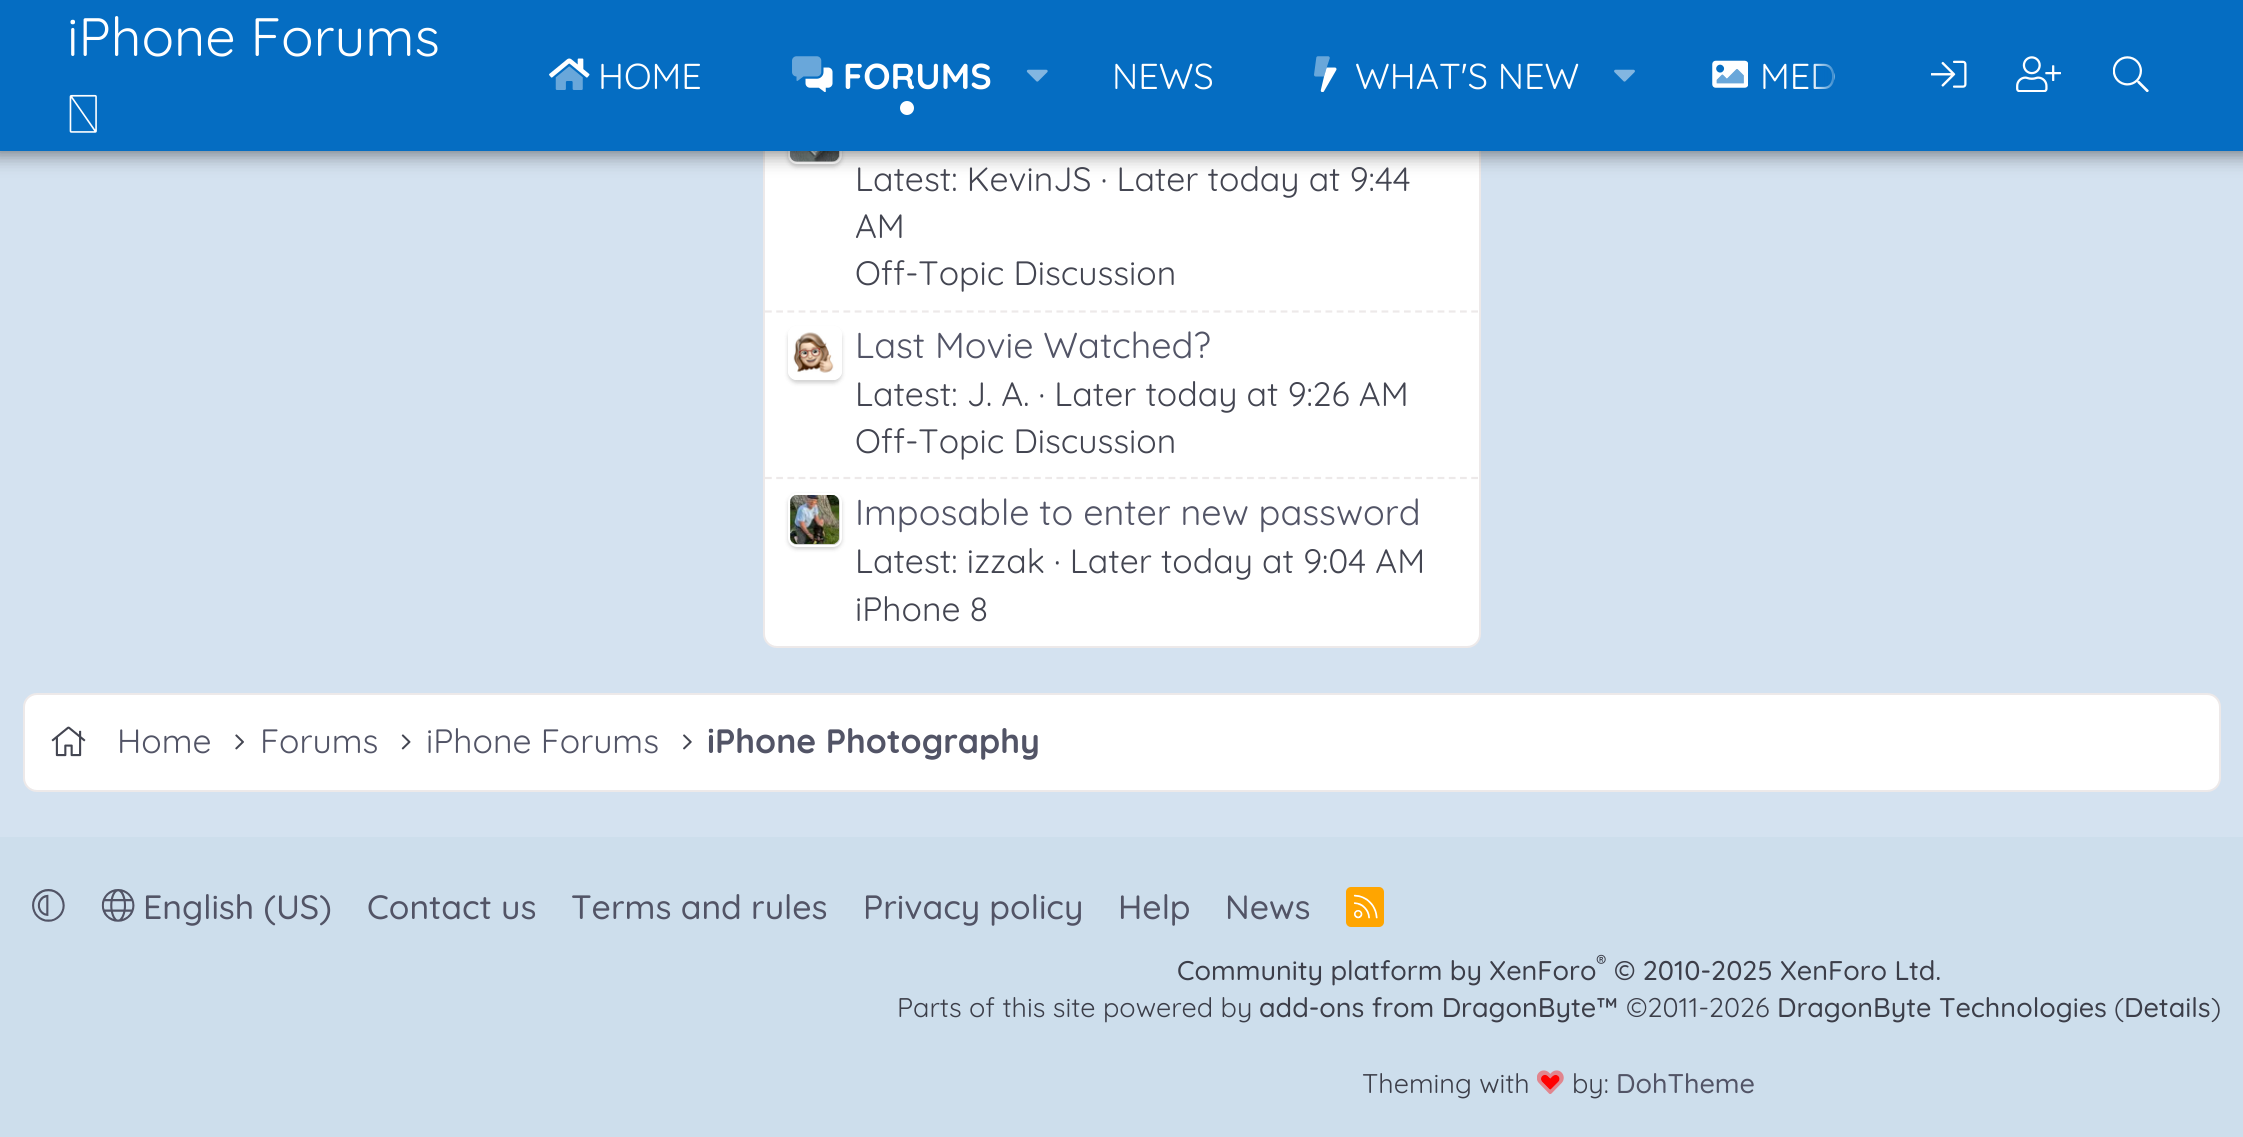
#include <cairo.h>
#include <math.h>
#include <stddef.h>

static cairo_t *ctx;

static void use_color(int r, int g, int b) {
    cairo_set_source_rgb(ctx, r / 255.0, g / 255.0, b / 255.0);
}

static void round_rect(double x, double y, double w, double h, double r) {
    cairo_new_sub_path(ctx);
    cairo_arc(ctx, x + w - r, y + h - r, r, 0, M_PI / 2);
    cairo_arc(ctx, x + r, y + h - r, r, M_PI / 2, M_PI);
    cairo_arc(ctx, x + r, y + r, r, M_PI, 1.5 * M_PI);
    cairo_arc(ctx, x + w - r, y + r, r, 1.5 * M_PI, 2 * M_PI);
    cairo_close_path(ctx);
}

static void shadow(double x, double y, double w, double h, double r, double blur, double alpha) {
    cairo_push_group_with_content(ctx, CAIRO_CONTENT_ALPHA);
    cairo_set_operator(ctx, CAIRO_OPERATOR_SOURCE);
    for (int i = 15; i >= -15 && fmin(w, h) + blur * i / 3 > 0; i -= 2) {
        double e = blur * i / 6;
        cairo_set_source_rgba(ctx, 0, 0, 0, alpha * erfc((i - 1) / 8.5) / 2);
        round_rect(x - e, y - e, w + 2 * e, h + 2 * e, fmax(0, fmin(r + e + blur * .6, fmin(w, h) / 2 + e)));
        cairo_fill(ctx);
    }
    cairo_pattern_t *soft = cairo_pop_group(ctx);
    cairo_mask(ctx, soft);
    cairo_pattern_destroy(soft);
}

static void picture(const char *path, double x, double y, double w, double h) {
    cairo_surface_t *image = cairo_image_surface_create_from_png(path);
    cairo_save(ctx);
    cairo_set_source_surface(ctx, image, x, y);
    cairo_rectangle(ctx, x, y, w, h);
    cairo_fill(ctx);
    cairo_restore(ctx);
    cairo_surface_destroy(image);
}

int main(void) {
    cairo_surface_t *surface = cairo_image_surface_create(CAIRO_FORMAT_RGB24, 2243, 1137);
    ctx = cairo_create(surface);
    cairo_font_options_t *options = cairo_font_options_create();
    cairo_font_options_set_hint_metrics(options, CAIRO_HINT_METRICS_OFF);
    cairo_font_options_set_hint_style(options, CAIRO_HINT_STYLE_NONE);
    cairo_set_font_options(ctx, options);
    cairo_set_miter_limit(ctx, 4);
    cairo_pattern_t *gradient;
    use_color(212, 226, 240);
    cairo_paint(ctx);
    use_color(255, 255, 255);
    round_rect(764, -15, 716, 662, 13);
    cairo_fill_preserve(ctx);
    use_color(237, 233, 233);
    cairo_stroke(ctx);
    use_color(0, 0, 0);
    shadow(788, 113, 54, 54, 9, 2, 0.18);
    round_rect(789, 111, 52, 52, 8);
    use_color(255, 255, 255);
    cairo_stroke(ctx);
    picture("img11.png", 790, 151, 49, 11);
    use_color(0, 0, 0);
    shadow(-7, -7, 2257, 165, 0, 9, 0.3);
    shadow(0, 0, 2243, 151, 0, 5.5, 0.2);
    use_color(5, 109, 194);
    cairo_rectangle(ctx, 0, 0, 2243, 151);
    cairo_fill(ctx);
    cairo_select_font_face(ctx, "Quicksand", CAIRO_FONT_SLANT_NORMAL, CAIRO_FONT_WEIGHT_NORMAL);
    cairo_set_font_size(ctx, 54);
    use_color(255, 255, 255);
    cairo_move_to(ctx, 67, 56);
    cairo_show_text(ctx, "iPhone Forums");
    picture("img1.png", 69, 94, 28, 39);
    picture("img2.png", 549, 58, 41, 32);
    cairo_set_font_size(ctx, 36);
    cairo_move_to(ctx, 598, 89);
    cairo_show_text(ctx, "HOME");
    picture("img3.png", 792, 56, 41, 36);
    cairo_select_font_face(ctx, "Quicksand", CAIRO_FONT_SLANT_NORMAL, CAIRO_FONT_WEIGHT_BOLD);
    cairo_move_to(ctx, 843, 89);
    cairo_show_text(ctx, "FORUMS");
    picture("img4.png", 1026, 69, 22, 13);
    cairo_arc(ctx, 907, 108, 7, 0, 2 * M_PI);
    cairo_fill(ctx);
    cairo_select_font_face(ctx, "Quicksand", CAIRO_FONT_SLANT_NORMAL, CAIRO_FONT_WEIGHT_NORMAL);
    cairo_move_to(ctx, 1112, 89);
    cairo_show_text(ctx, "NEWS");
    picture("img5.png", 1314, 56, 23, 36);
    cairo_move_to(ctx, 1355, 89);
    cairo_show_text(ctx, "WHAT'S NEW");
    picture("img6.png", 1614, 69, 21, 13);
    picture("img7.png", 1712, 60, 36, 28);
    cairo_move_to(ctx, 1760, 89);
    cairo_show_text(ctx, "MED");
    gradient = cairo_pattern_create_linear(1811, 75, 1901, 75);
    cairo_pattern_add_color_stop_rgba(gradient, 0, 0.02, 0.427, 0.761, 0);
    cairo_pattern_add_color_stop_rgba(gradient, 0.33, 0.02, 0.427, 0.761, 1);
    cairo_set_source(ctx, gradient);
    cairo_pattern_destroy(gradient);
    cairo_rectangle(ctx, 1813, 63, 21, 26);
    cairo_fill(ctx);
    picture("img8.png", 1931, 60, 36, 28);
    picture("img9.png", 2016, 56, 45, 36);
    picture("img10.png", 2113, 56, 36, 36);
    cairo_set_font_size(ctx, 33.75);
    use_color(67, 69, 81);
    cairo_move_to(ctx, 855, 191);
    cairo_show_text(ctx, "Latest: KevinJS · Later today at 9:44");
    cairo_move_to(ctx, 855, 238);
    cairo_show_text(ctx, "AM");
    cairo_move_to(ctx, 855, 285);
    cairo_show_text(ctx, "Off-Topic Discussion");
    cairo_new_path(ctx);
    cairo_move_to(ctx, 765, 311.5);
    cairo_line_to(ctx, 1478, 311.5);
    use_color(237, 233, 233);
    cairo_set_line_width(ctx, 2.2);
    cairo_set_dash(ctx, (double[]){6.75, 4.46}, 2, 0);
    cairo_stroke(ctx);
    cairo_save(ctx);
    cairo_set_fill_rule(ctx, CAIRO_FILL_RULE_EVEN_ODD);
    cairo_new_path(ctx);
    cairo_move_to(ctx, 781, 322);
    cairo_line_to(ctx, 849, 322);
    cairo_line_to(ctx, 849, 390);
    cairo_line_to(ctx, 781, 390);
    cairo_close_path(ctx);
    cairo_move_to(ctx, 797, 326);
    cairo_line_to(ctx, 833, 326);
    cairo_curve_to(ctx, 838, 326, 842, 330, 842, 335);
    cairo_line_to(ctx, 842, 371);
    cairo_curve_to(ctx, 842, 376, 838, 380, 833, 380);
    cairo_line_to(ctx, 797, 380);
    cairo_curve_to(ctx, 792, 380, 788, 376, 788, 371);
    cairo_line_to(ctx, 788, 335);
    cairo_curve_to(ctx, 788, 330, 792, 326, 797, 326);
    cairo_close_path(ctx);
    cairo_clip(ctx);
    use_color(0, 0, 0);
    shadow(788, 329, 54, 54, 9, 2, 0.18);
    cairo_restore(ctx);
    round_rect(789, 327, 52, 52, 8);
    use_color(255, 255, 255);
    cairo_set_line_width(ctx, 2);
    cairo_set_dash(ctx, NULL, 0, 0);
    cairo_stroke(ctx);
    picture("img12.png", 793, 332, 41, 41);
    cairo_set_font_size(ctx, 36);
    use_color(82, 84, 102);
    cairo_move_to(ctx, 855, 358);
    cairo_show_text(ctx, "Last Movie Watched?");
    cairo_set_font_size(ctx, 33.75);
    use_color(67, 69, 81);
    cairo_move_to(ctx, 855, 406);
    cairo_show_text(ctx, "Latest: J. A. · Later today at 9:26 AM");
    cairo_move_to(ctx, 855, 453);
    cairo_show_text(ctx, "Off-Topic Discussion");
    cairo_new_path(ctx);
    cairo_move_to(ctx, 765, 478);
    cairo_line_to(ctx, 1478, 478);
    use_color(237, 233, 233);
    cairo_set_line_width(ctx, 2.2);
    cairo_set_dash(ctx, (double[]){6.75, 4.46}, 2, 0);
    cairo_stroke(ctx);
    use_color(0, 0, 0);
    shadow(788, 495, 54, 54, 9, 2, 0.18);
    round_rect(789, 494, 52, 52, 8);
    use_color(255, 255, 255);
    cairo_set_line_width(ctx, 2);
    cairo_set_dash(ctx, NULL, 0, 0);
    cairo_stroke(ctx);
    picture("img13.png", 790, 495, 49, 49);
    cairo_set_font_size(ctx, 36);
    use_color(82, 84, 102);
    cairo_move_to(ctx, 855, 525);
    cairo_show_text(ctx, "Imposable to enter new password");
    cairo_set_font_size(ctx, 33.75);
    use_color(67, 69, 81);
    cairo_move_to(ctx, 855, 573);
    cairo_show_text(ctx, "Latest: izzak · Later today at 9:04 AM");
    cairo_move_to(ctx, 855, 621);
    cairo_show_text(ctx, "iPhone 8");
    use_color(255, 255, 255);
    round_rect(24, 694, 2196, 97, 13);
    cairo_fill_preserve(ctx);
    use_color(237, 233, 233);
    cairo_stroke(ctx);
    picture("img14.png", 51, 726, 35, 31);
    use_color(82, 84, 102);
    cairo_move_to(ctx, 117, 753);
    cairo_show_text(ctx, "Home");
    picture("img15.png", 235, 734, 9, 16);
    cairo_move_to(ctx, 260, 753);
    cairo_show_text(ctx, "Forums");
    picture("img16.png", 401, 734, 10, 16);
    cairo_move_to(ctx, 426, 753);
    cairo_show_text(ctx, "iPhone Forums");
    picture("img17.png", 683, 734, 9, 16);
    cairo_select_font_face(ctx, "Quicksand", CAIRO_FONT_SLANT_NORMAL, CAIRO_FONT_WEIGHT_BOLD);
    cairo_move_to(ctx, 707, 753);
    cairo_show_text(ctx, "iPhone Photography");
    use_color(205, 222, 236);
    cairo_rectangle(ctx, 0, 837, 2243, 300);
    cairo_fill(ctx);
    picture("img18.png", 32, 889, 33, 33);
    picture("img19.png", 101, 889, 34, 33);
    cairo_select_font_face(ctx, "Quicksand Medium", CAIRO_FONT_SLANT_NORMAL, CAIRO_FONT_WEIGHT_NORMAL);
    use_color(82, 84, 102);
    cairo_move_to(ctx, 143, 919);
    cairo_show_text(ctx, "English (US)");
    cairo_move_to(ctx, 367, 919);
    cairo_show_text(ctx, "Contact us");
    cairo_move_to(ctx, 571, 919);
    cairo_show_text(ctx, "Terms and rules");
    cairo_move_to(ctx, 863, 919);
    cairo_show_text(ctx, "Privacy policy");
    cairo_move_to(ctx, 1118, 919);
    cairo_show_text(ctx, "Help");
    cairo_move_to(ctx, 1225, 919);
    cairo_show_text(ctx, "News");
    use_color(255, 165, 0);
    round_rect(1346, 887, 38, 40, 5);
    cairo_fill(ctx);
    picture("img20.png", 1353, 894, 25, 25);
    cairo_set_font_size(ctx, 20);
    use_color(60, 62, 73);
    cairo_move_to(ctx, 1596, 969);
    cairo_show_text(ctx, "®");
    cairo_set_font_size(ctx, 27);
    cairo_move_to(ctx, 1177, 980);
    cairo_show_text(ctx, "Community platform by XenForo");
    cairo_move_to(ctx, 1614, 980);
    cairo_show_text(ctx, "© 2010-2025 XenForo Ltd.");
    cairo_select_font_face(ctx, "Quicksand", CAIRO_FONT_SLANT_NORMAL, CAIRO_FONT_WEIGHT_NORMAL);
    cairo_move_to(ctx, 897, 1017);
    cairo_show_text(ctx, "Parts of this site powered by");
    cairo_select_font_face(ctx, "Quicksand Medium", CAIRO_FONT_SLANT_NORMAL, CAIRO_FONT_WEIGHT_NORMAL);
    cairo_move_to(ctx, 1259, 1017);
    cairo_show_text(ctx, "add-ons from DragonByte™");
    cairo_select_font_face(ctx, "Quicksand", CAIRO_FONT_SLANT_NORMAL, CAIRO_FONT_WEIGHT_NORMAL);
    cairo_move_to(ctx, 1626, 1017);
    cairo_show_text(ctx, "©2011-2026");
    cairo_select_font_face(ctx, "Quicksand Medium", CAIRO_FONT_SLANT_NORMAL, CAIRO_FONT_WEIGHT_NORMAL);
    cairo_move_to(ctx, 1777, 1017);
    cairo_show_text(ctx, "DragonByte Technologies");
    cairo_select_font_face(ctx, "Quicksand", CAIRO_FONT_SLANT_NORMAL, CAIRO_FONT_WEIGHT_NORMAL);
    cairo_move_to(ctx, 2114, 1017);
    cairo_show_text(ctx, "(");
    cairo_select_font_face(ctx, "Quicksand Medium", CAIRO_FONT_SLANT_NORMAL, CAIRO_FONT_WEIGHT_NORMAL);
    cairo_move_to(ctx, 2124, 1017);
    cairo_show_text(ctx, "Details");
    cairo_select_font_face(ctx, "Quicksand", CAIRO_FONT_SLANT_NORMAL, CAIRO_FONT_WEIGHT_NORMAL);
    cairo_move_to(ctx, 2211, 1017);
    cairo_show_text(ctx, ")");
    cairo_move_to(ctx, 1362, 1093);
    cairo_show_text(ctx, "Theming with");
    picture("img21.png", 1537, 1070, 27, 24);
    cairo_move_to(ctx, 1572, 1093);
    cairo_show_text(ctx, "by:");
    cairo_select_font_face(ctx, "Quicksand Medium", CAIRO_FONT_SLANT_NORMAL, CAIRO_FONT_WEIGHT_NORMAL);
    use_color(82, 84, 102);
    cairo_move_to(ctx, 1616, 1093);
    cairo_show_text(ctx, "DohTheme");
    cairo_surface_write_to_png(surface, "result.png");
    cairo_font_options_destroy(options);
    cairo_destroy(ctx);
    cairo_surface_destroy(surface);
    return 0;
}
